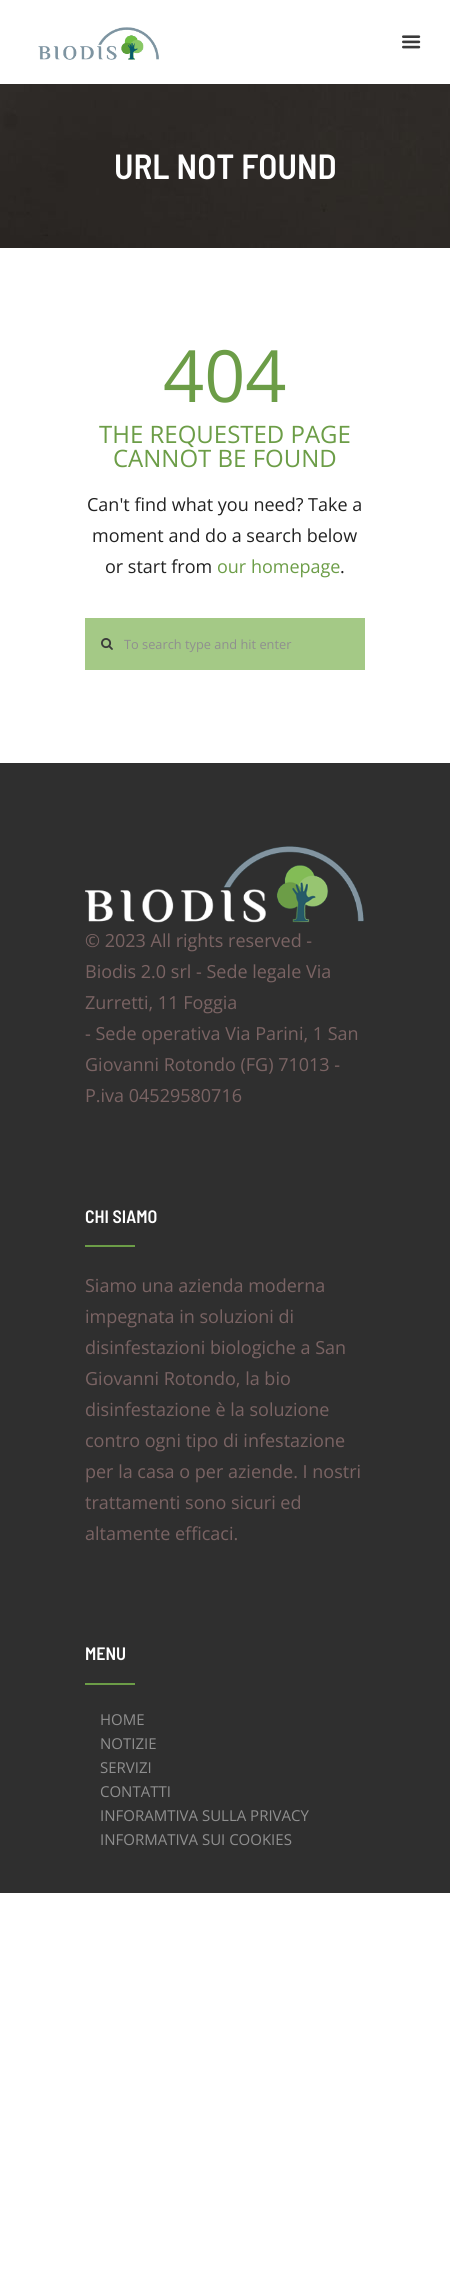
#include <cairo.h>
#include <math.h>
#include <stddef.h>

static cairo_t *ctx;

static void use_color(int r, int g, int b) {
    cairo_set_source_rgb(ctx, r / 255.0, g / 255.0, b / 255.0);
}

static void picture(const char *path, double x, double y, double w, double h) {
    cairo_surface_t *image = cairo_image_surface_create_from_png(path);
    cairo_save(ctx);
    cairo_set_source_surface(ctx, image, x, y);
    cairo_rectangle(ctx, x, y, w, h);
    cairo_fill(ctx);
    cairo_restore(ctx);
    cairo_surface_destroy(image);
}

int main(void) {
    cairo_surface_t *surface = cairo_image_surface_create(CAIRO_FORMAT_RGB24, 450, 2285);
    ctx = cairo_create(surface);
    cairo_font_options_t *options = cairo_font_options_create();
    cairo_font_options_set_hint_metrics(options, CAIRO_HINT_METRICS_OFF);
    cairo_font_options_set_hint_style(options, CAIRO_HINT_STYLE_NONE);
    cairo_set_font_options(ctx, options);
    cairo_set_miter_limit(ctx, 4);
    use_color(255, 255, 255);
    cairo_paint(ctx);
    picture("img1.png", 38, 27, 121, 33);
    picture("img2.png", 402, 35, 19, 14);
    picture("img3.png", 0, 84, 450, 164);
    cairo_select_font_face(ctx, "Barlow Semi Condensed SemiBold", CAIRO_FONT_SLANT_NORMAL, CAIRO_FONT_WEIGHT_NORMAL);
    cairo_set_font_size(ctx, 35);
    use_color(255, 255, 255);
    cairo_move_to(ctx, 114, 179);
    cairo_show_text(ctx, "URL NOT FOUND");
    cairo_select_font_face(ctx, "Open Sans", CAIRO_FONT_SLANT_NORMAL, CAIRO_FONT_WEIGHT_NORMAL);
    cairo_set_font_size(ctx, 72);
    use_color(108, 157, 71);
    cairo_move_to(ctx, 163, 402);
    cairo_show_text(ctx, "404");
    cairo_set_font_size(ctx, 24);
    cairo_move_to(ctx, 99, 443);
    cairo_show_text(ctx, "THE REQUESTED PAGE");
    cairo_move_to(ctx, 113, 467);
    cairo_show_text(ctx, "CANNOT BE FOUND");
    cairo_set_font_size(ctx, 18);
    use_color(34, 34, 34);
    cairo_move_to(ctx, 87, 511);
    cairo_show_text(ctx, "Can't find what you need? Take a");
    cairo_move_to(ctx, 92, 542);
    cairo_show_text(ctx, "moment and do a search below");
    cairo_move_to(ctx, 105, 573);
    cairo_show_text(ctx, "or start from");
    use_color(108, 157, 71);
    cairo_move_to(ctx, 217, 573);
    cairo_show_text(ctx, "our homepage");
    use_color(34, 34, 34);
    cairo_move_to(ctx, 340, 573);
    cairo_show_text(ctx, ".");
    use_color(164, 201, 134);
    cairo_rectangle(ctx, 85, 618, 280, 52);
    cairo_fill(ctx);
    picture("img4.png", 101, 638, 12, 12);
    cairo_set_font_size(ctx, 12.8);
    use_color(143, 143, 143);
    cairo_move_to(ctx, 124, 649);
    cairo_show_text(ctx, "To search type and hit enter");
    use_color(47, 47, 47);
    cairo_rectangle(ctx, 0, 763, 450, 1130);
    cairo_fill(ctx);
    picture("img5.png", 85, 846, 279, 77);
    cairo_set_font_size(ctx, 18);
    use_color(122, 99, 99);
    cairo_move_to(ctx, 85, 947);
    cairo_show_text(ctx, "© 2023 All rights reserved -");
    cairo_move_to(ctx, 85, 978);
    cairo_show_text(ctx, "Biodis 2.0 srl - Sede legale Via");
    cairo_move_to(ctx, 85, 1009);
    cairo_show_text(ctx, "Zurretti, 11 Foggia");
    cairo_move_to(ctx, 85, 1040);
    cairo_show_text(ctx, "- Sede operativa Via Parini, 1 San");
    cairo_move_to(ctx, 85, 1071);
    cairo_show_text(ctx, "Giovanni Rotondo (FG) 71013 -");
    cairo_move_to(ctx, 85, 1102);
    cairo_show_text(ctx, "P.iva 04529580716");
    cairo_select_font_face(ctx, "Barlow Semi Condensed SemiBold", CAIRO_FONT_SLANT_NORMAL, CAIRO_FONT_WEIGHT_NORMAL);
    use_color(255, 255, 255);
    cairo_move_to(ctx, 85, 1223);
    cairo_show_text(ctx, "CHI SIAMO");
    use_color(108, 157, 71);
    cairo_rectangle(ctx, 85, 1245, 50, 2);
    cairo_fill(ctx);
    cairo_select_font_face(ctx, "Open Sans", CAIRO_FONT_SLANT_NORMAL, CAIRO_FONT_WEIGHT_NORMAL);
    use_color(122, 99, 99);
    cairo_move_to(ctx, 85, 1292);
    cairo_show_text(ctx, "Siamo una azienda moderna");
    cairo_move_to(ctx, 85, 1323);
    cairo_show_text(ctx, "impegnata in soluzioni di");
    cairo_move_to(ctx, 85, 1354);
    cairo_show_text(ctx, "disinfestazioni biologiche a San");
    cairo_move_to(ctx, 85, 1385);
    cairo_show_text(ctx, "Giovanni Rotondo, la bio");
    cairo_move_to(ctx, 85, 1416);
    cairo_show_text(ctx, "disinfestazione è la soluzione");
    cairo_move_to(ctx, 85, 1447);
    cairo_show_text(ctx, "contro ogni tipo di infestazione");
    cairo_move_to(ctx, 85, 1478);
    cairo_show_text(ctx, "per la casa o per aziende. I nostri");
    cairo_move_to(ctx, 85, 1509);
    cairo_show_text(ctx, "trattamenti sono sicuri ed");
    cairo_move_to(ctx, 85, 1540);
    cairo_show_text(ctx, "altamente efficaci.");
    cairo_select_font_face(ctx, "Barlow Semi Condensed SemiBold", CAIRO_FONT_SLANT_NORMAL, CAIRO_FONT_WEIGHT_NORMAL);
    use_color(255, 255, 255);
    cairo_move_to(ctx, 85, 1660);
    cairo_show_text(ctx, "MENU");
    use_color(108, 157, 71);
    cairo_rectangle(ctx, 85, 1683, 50, 2);
    cairo_fill(ctx);
    cairo_select_font_face(ctx, "Open Sans", CAIRO_FONT_SLANT_NORMAL, CAIRO_FONT_WEIGHT_NORMAL);
    cairo_set_font_size(ctx, 15);
    use_color(143, 143, 143);
    cairo_move_to(ctx, 100, 1725);
    cairo_show_text(ctx, "HOME");
    cairo_move_to(ctx, 100, 1749);
    cairo_show_text(ctx, "NOTIZIE");
    cairo_move_to(ctx, 100, 1773);
    cairo_show_text(ctx, "SERVIZI");
    cairo_move_to(ctx, 100, 1797);
    cairo_show_text(ctx, "CONTATTI");
    cairo_move_to(ctx, 100, 1821);
    cairo_show_text(ctx, "INFORAMTIVA SULLA PRIVACY");
    cairo_move_to(ctx, 100, 1845);
    cairo_show_text(ctx, "INFORMATIVA SUI COOKIES");
    cairo_surface_write_to_png(surface, "result.png");
    cairo_font_options_destroy(options);
    cairo_destroy(ctx);
    cairo_surface_destroy(surface);
    return 0;
}
